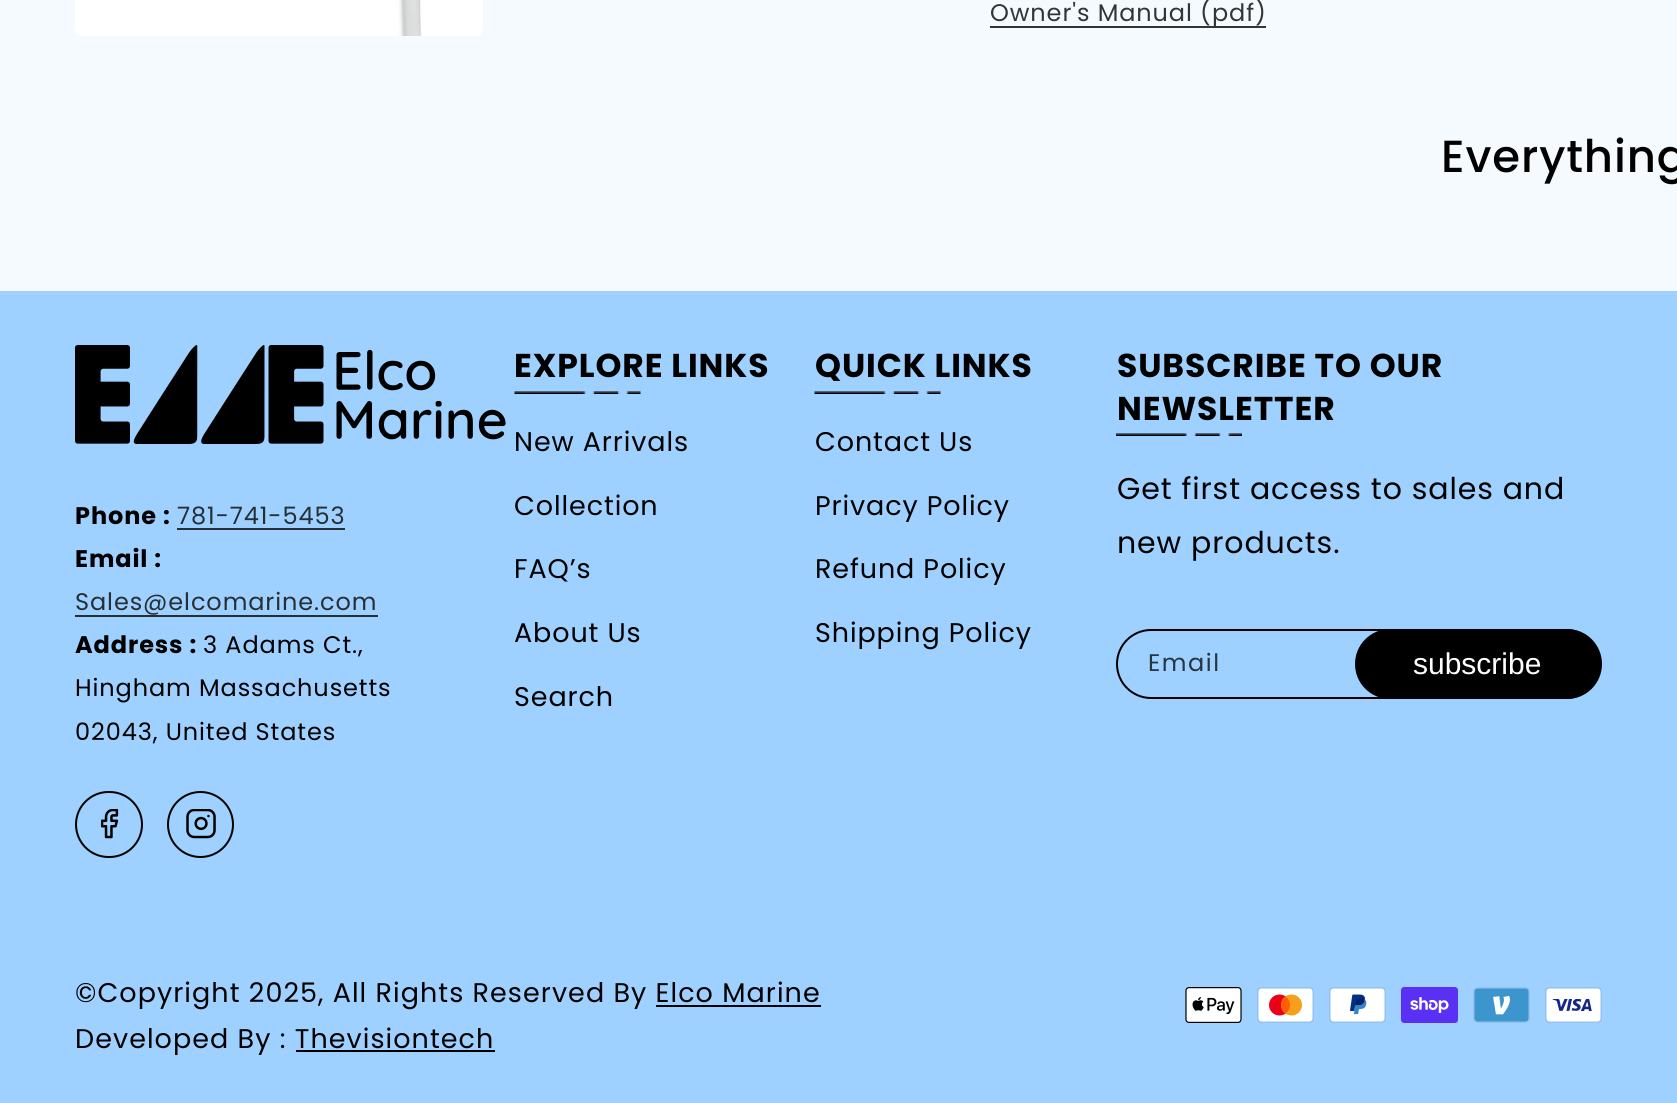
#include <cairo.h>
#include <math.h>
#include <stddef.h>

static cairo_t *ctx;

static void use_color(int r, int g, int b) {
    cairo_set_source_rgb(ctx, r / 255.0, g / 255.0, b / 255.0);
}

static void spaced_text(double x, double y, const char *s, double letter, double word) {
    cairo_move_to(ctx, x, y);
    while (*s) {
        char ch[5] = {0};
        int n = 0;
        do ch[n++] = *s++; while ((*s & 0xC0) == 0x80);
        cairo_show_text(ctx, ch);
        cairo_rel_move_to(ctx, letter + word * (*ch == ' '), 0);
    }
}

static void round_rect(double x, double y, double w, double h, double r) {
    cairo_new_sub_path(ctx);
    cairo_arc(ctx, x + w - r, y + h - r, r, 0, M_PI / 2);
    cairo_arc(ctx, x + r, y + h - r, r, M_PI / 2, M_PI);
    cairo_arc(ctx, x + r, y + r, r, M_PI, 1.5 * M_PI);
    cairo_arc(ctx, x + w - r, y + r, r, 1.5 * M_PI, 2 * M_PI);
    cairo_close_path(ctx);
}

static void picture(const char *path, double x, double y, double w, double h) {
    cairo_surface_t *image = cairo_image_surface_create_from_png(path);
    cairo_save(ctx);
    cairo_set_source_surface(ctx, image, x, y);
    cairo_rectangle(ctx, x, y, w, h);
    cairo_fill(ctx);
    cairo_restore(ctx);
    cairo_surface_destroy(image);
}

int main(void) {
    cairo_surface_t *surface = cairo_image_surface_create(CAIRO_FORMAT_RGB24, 1677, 1103);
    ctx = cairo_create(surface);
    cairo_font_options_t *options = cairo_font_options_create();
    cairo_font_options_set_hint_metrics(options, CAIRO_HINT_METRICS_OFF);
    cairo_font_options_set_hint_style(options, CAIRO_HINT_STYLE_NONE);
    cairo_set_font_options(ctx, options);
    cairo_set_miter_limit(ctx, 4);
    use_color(245, 250, 255);
    cairo_paint(ctx);
    picture("img1.png", 75, 0, 408, 36);
    use_color(52, 53, 54);
    cairo_rectangle(ctx, 990, 26, 276, 2);
    cairo_fill(ctx);
    cairo_select_font_face(ctx, "Poppins", CAIRO_FONT_SLANT_NORMAL, CAIRO_FONT_WEIGHT_NORMAL);
    cairo_set_font_size(ctx, 24);
    use_color(52, 53, 53);
    spaced_text(990, 21, "Owner's Manual (pdf)", 0.9, 0);
    cairo_select_font_face(ctx, "Poppins Medium", CAIRO_FONT_SLANT_NORMAL, CAIRO_FONT_WEIGHT_NORMAL);
    cairo_set_font_size(ctx, 45);
    use_color(0, 0, 0);
    spaced_text(1441, 172, "Everything", 0.9, 0);
    use_color(158, 209, 255);
    cairo_rectangle(ctx, 0, 291, 1677, 812);
    cairo_fill(ctx);
    picture("img2.png", 75, 345, 431, 99);
    cairo_select_font_face(ctx, "Poppins", CAIRO_FONT_SLANT_NORMAL, CAIRO_FONT_WEIGHT_BOLD);
    cairo_set_font_size(ctx, 24);
    use_color(0, 0, 0);
    spaced_text(75, 524, "Phone :", 0.9, 0);
    cairo_select_font_face(ctx, "Poppins", CAIRO_FONT_SLANT_NORMAL, CAIRO_FONT_WEIGHT_NORMAL);
    use_color(39, 47, 54);
    spaced_text(177, 524, "781-741-5453", 0.9, 0);
    cairo_rectangle(ctx, 177, 528, 168, 2);
    cairo_fill(ctx);
    cairo_select_font_face(ctx, "Poppins", CAIRO_FONT_SLANT_NORMAL, CAIRO_FONT_WEIGHT_BOLD);
    use_color(0, 0, 0);
    spaced_text(75, 567, "Email :", 0.9, 0);
    cairo_select_font_face(ctx, "Poppins", CAIRO_FONT_SLANT_NORMAL, CAIRO_FONT_WEIGHT_NORMAL);
    use_color(39, 47, 54);
    spaced_text(75, 610, "Sales@elcomarine.com", 0.9, 0);
    cairo_rectangle(ctx, 75, 615, 303, 2);
    cairo_fill(ctx);
    cairo_select_font_face(ctx, "Poppins", CAIRO_FONT_SLANT_NORMAL, CAIRO_FONT_WEIGHT_BOLD);
    use_color(0, 0, 0);
    spaced_text(75, 653, "Address :", 0.9, 0);
    cairo_select_font_face(ctx, "Poppins", CAIRO_FONT_SLANT_NORMAL, CAIRO_FONT_WEIGHT_NORMAL);
    spaced_text(203, 653, "3 Adams Ct.,", 0.9, 0);
    spaced_text(75, 696, "Hingham Massachusetts", 0.9, 0);
    spaced_text(75, 740, "02043, United States", 0.9, 0);
    round_rect(76, 792, 66, 65, 32.5);
    cairo_stroke(ctx);
    picture("img3.png", 101, 809, 18, 30);
    cairo_arc(ctx, 200.5, 824.5, 32.5, 0, 2 * M_PI);
    cairo_stroke(ctx);
    picture("img4.png", 186, 809, 30, 30);
    cairo_select_font_face(ctx, "Poppins", CAIRO_FONT_SLANT_NORMAL, CAIRO_FONT_WEIGHT_BOLD);
    cairo_set_font_size(ctx, 33);
    spaced_text(514, 377, "EXPLORE LINKS", 0.9, 0);
    picture("img5.png", 514, 391, 127, 3);
    cairo_select_font_face(ctx, "Poppins", CAIRO_FONT_SLANT_NORMAL, CAIRO_FONT_WEIGHT_NORMAL);
    cairo_set_font_size(ctx, 27);
    spaced_text(514, 451, "New Arrivals", 0.9, 0);
    spaced_text(514, 515, "Collection", 0.9, 0);
    spaced_text(514, 578, "FAQ’s", 0.9, 0);
    spaced_text(514, 642, "About Us", 0.9, 0);
    spaced_text(514, 706, "Search", 0.9, 0);
    cairo_select_font_face(ctx, "Poppins", CAIRO_FONT_SLANT_NORMAL, CAIRO_FONT_WEIGHT_BOLD);
    cairo_set_font_size(ctx, 33);
    spaced_text(815, 377, "QUICK LINKS", 0.9, 0);
    picture("img5.png", 814, 391, 127, 3);
    cairo_select_font_face(ctx, "Poppins", CAIRO_FONT_SLANT_NORMAL, CAIRO_FONT_WEIGHT_NORMAL);
    cairo_set_font_size(ctx, 27);
    spaced_text(815, 451, "Contact Us", 0.9, 0);
    spaced_text(815, 515, "Privacy Policy", 0.9, 0);
    spaced_text(815, 578, "Refund Policy", 0.9, 0);
    spaced_text(815, 642, "Shipping Policy", 0.9, 0);
    cairo_select_font_face(ctx, "Poppins", CAIRO_FONT_SLANT_NORMAL, CAIRO_FONT_WEIGHT_BOLD);
    cairo_set_font_size(ctx, 33);
    spaced_text(1117, 377, "SUBSCRIBE TO OUR", 0.9, 0);
    spaced_text(1117, 420, "NEWSLETTER", 0.9, 0);
    picture("img6.png", 1116, 433, 126, 3);
    cairo_select_font_face(ctx, "Poppins", CAIRO_FONT_SLANT_NORMAL, CAIRO_FONT_WEIGHT_NORMAL);
    cairo_set_font_size(ctx, 30);
    spaced_text(1117, 499, "Get first access to sales and", 0.9, 0);
    spaced_text(1117, 553, "new products.", 0.9, 0);
    round_rect(1117, 630, 484, 68, 34);
    cairo_stroke(ctx);
    cairo_set_font_size(ctx, 24);
    use_color(40, 52, 64);
    spaced_text(1148, 671, "Email", 1.5, 0);
    use_color(0, 0, 0);
    round_rect(1355, 629, 246, 70, 35);
    cairo_fill(ctx);
    cairo_select_font_face(ctx, "Liberation Sans", CAIRO_FONT_SLANT_NORMAL, CAIRO_FONT_WEIGHT_NORMAL);
    cairo_set_font_size(ctx, 30);
    use_color(255, 255, 255);
    cairo_move_to(ctx, 1413, 674);
    cairo_show_text(ctx, "subscribe");
    cairo_select_font_face(ctx, "Poppins", CAIRO_FONT_SLANT_NORMAL, CAIRO_FONT_WEIGHT_NORMAL);
    cairo_set_font_size(ctx, 27);
    use_color(0, 0, 0);
    spaced_text(75, 1002, "©Copyright 2025, All Rights Reserved By Elco Marine", 1.05, 0);
    cairo_rectangle(ctx, 656, 1005, 165, 2);
    cairo_fill(ctx);
    spaced_text(75, 1048, "Developed By : Thevisiontech", 1.05, 0);
    cairo_rectangle(ctx, 296, 1050, 199, 2);
    cairo_fill(ctx);
    picture("img7.png", 1185, 987, 57, 36);
    picture("img8.png", 1257, 987, 57, 36);
    picture("img9.png", 1329, 987, 57, 36);
    picture("img10.png", 1401, 987, 57, 36);
    picture("img11.png", 1473, 987, 57, 36);
    picture("img12.png", 1545, 987, 57, 36);
    cairo_surface_write_to_png(surface, "result.png");
    cairo_font_options_destroy(options);
    cairo_destroy(ctx);
    cairo_surface_destroy(surface);
    return 0;
}
